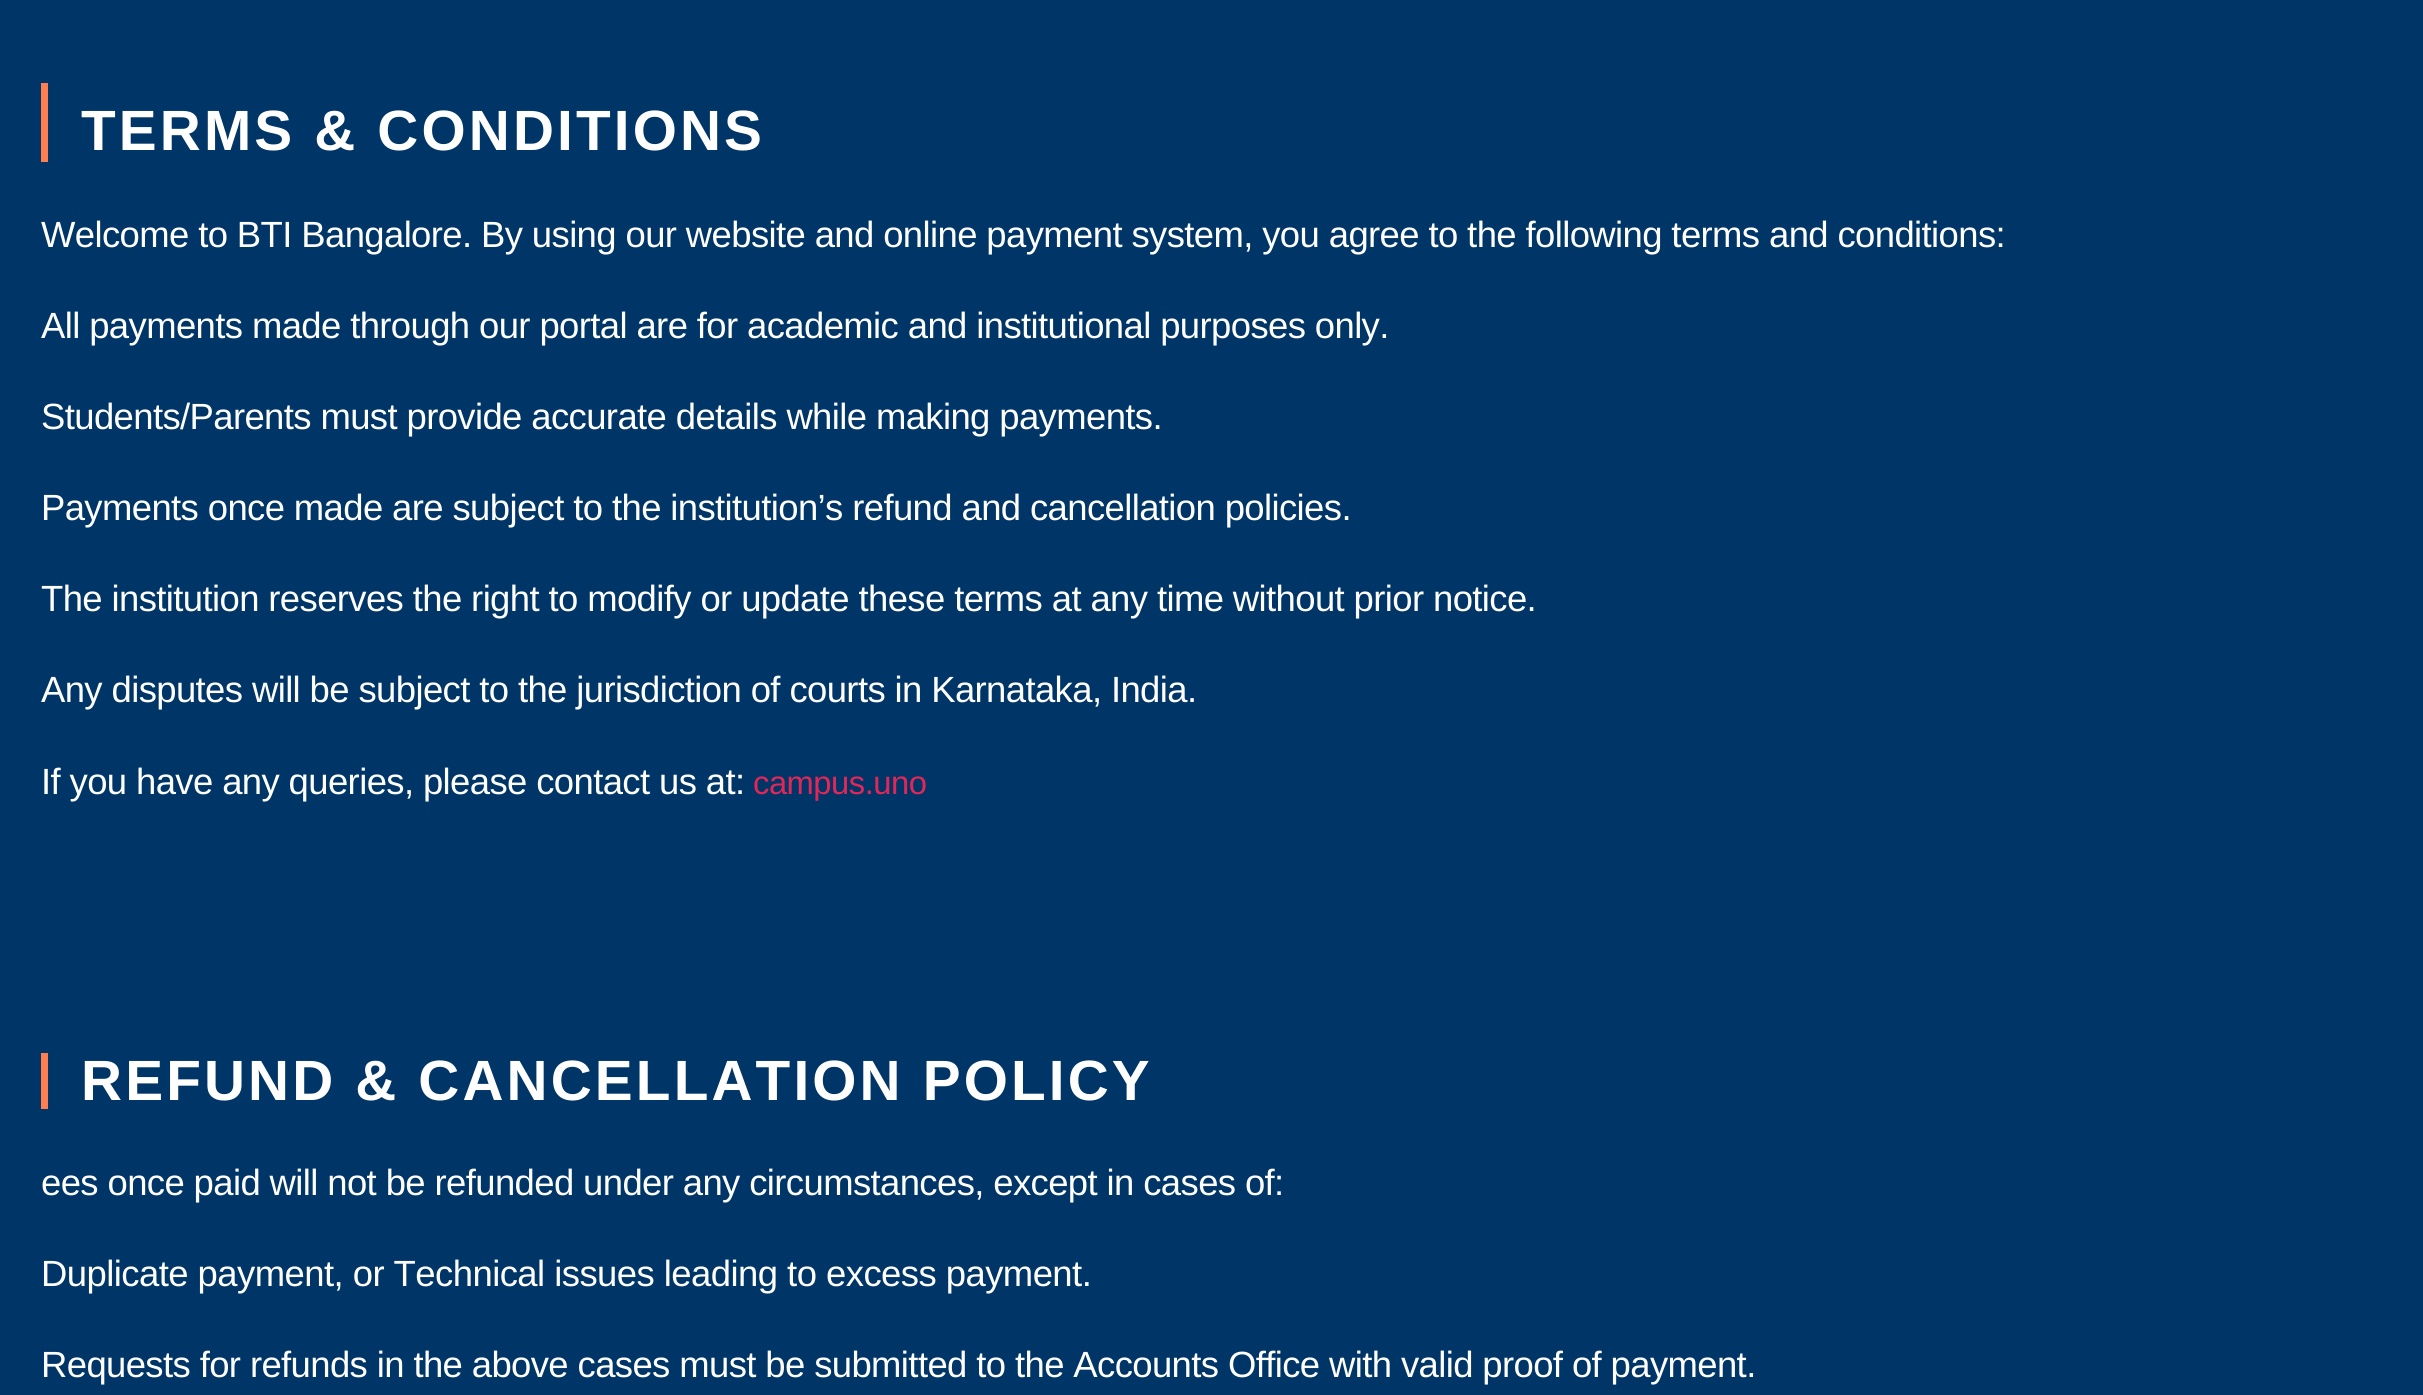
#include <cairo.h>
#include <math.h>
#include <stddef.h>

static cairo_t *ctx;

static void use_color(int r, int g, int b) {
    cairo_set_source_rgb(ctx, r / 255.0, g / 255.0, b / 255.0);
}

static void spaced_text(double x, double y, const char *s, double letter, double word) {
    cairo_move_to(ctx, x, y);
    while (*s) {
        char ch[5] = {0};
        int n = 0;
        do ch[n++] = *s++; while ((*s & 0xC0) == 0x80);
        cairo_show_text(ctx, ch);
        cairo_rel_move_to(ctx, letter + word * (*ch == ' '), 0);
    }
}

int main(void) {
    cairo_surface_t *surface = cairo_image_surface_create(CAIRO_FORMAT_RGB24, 2423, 1395);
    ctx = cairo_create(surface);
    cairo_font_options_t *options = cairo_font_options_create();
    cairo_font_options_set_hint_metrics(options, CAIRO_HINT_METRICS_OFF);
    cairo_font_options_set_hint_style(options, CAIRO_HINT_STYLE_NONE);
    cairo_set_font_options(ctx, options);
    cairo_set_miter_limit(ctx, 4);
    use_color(0, 53, 103);
    cairo_paint(ctx);
    use_color(255, 127, 80);
    cairo_rectangle(ctx, 41, 83, 7, 79);
    cairo_fill(ctx);
    cairo_select_font_face(ctx, "Liberation Sans", CAIRO_FONT_SLANT_NORMAL, CAIRO_FONT_WEIGHT_BOLD);
    cairo_set_font_size(ctx, 56.75);
    use_color(255, 255, 255);
    spaced_text(81, 150, "TERMS & CONDITIONS", 3.15, 0);
    cairo_select_font_face(ctx, "Liberation Sans", CAIRO_FONT_SLANT_NORMAL, CAIRO_FONT_WEIGHT_NORMAL);
    cairo_set_font_size(ctx, 36.45);
    spaced_text(41, 247, "Welcome to BTI Bangalore. By using our website and online payment system, you agree to the following terms and conditions:", -0.61, 0);
    spaced_text(41, 338, "All payments made through our portal are for academic and institutional purposes only.", -0.61, 0);
    spaced_text(41, 429, "Students/Parents must provide accurate details while making payments.", -0.61, 0);
    spaced_text(41, 520, "Payments once made are subject to the institution’s refund and cancellation policies.", -0.61, 0);
    spaced_text(41, 611, "The institution reserves the right to modify or update these terms at any time without prior notice.", -0.61, 0);
    spaced_text(41, 702, "Any disputes will be subject to the jurisdiction of courts in Karnataka, India.", -0.61, 0);
    spaced_text(41, 794, "If you have any queries, please contact us at:", -0.61, 0);
    cairo_set_font_size(ctx, 32.75);
    use_color(226, 38, 88);
    spaced_text(753, 794, "campus.uno", -0.5, 0);
    use_color(255, 127, 80);
    cairo_rectangle(ctx, 41, 1053, 7, 56);
    cairo_fill(ctx);
    cairo_select_font_face(ctx, "Liberation Sans", CAIRO_FONT_SLANT_NORMAL, CAIRO_FONT_WEIGHT_BOLD);
    cairo_set_font_size(ctx, 56.75);
    use_color(255, 255, 255);
    spaced_text(81, 1100, "REFUND & CANCELLATION POLICY", 3.15, 0);
    cairo_select_font_face(ctx, "Liberation Sans", CAIRO_FONT_SLANT_NORMAL, CAIRO_FONT_WEIGHT_NORMAL);
    cairo_set_font_size(ctx, 36.45);
    spaced_text(41, 1195, "ees once paid will not be refunded under any circumstances, except in cases of:", -0.61, 0);
    spaced_text(41, 1286, "Duplicate payment, or Technical issues leading to excess payment.", -0.55, 0);
    spaced_text(41, 1377, "Requests for refunds in the above cases must be submitted to the Accounts Office with valid proof of payment.", -0.61, 0);
    cairo_surface_write_to_png(surface, "result.png");
    cairo_font_options_destroy(options);
    cairo_destroy(ctx);
    cairo_surface_destroy(surface);
    return 0;
}
